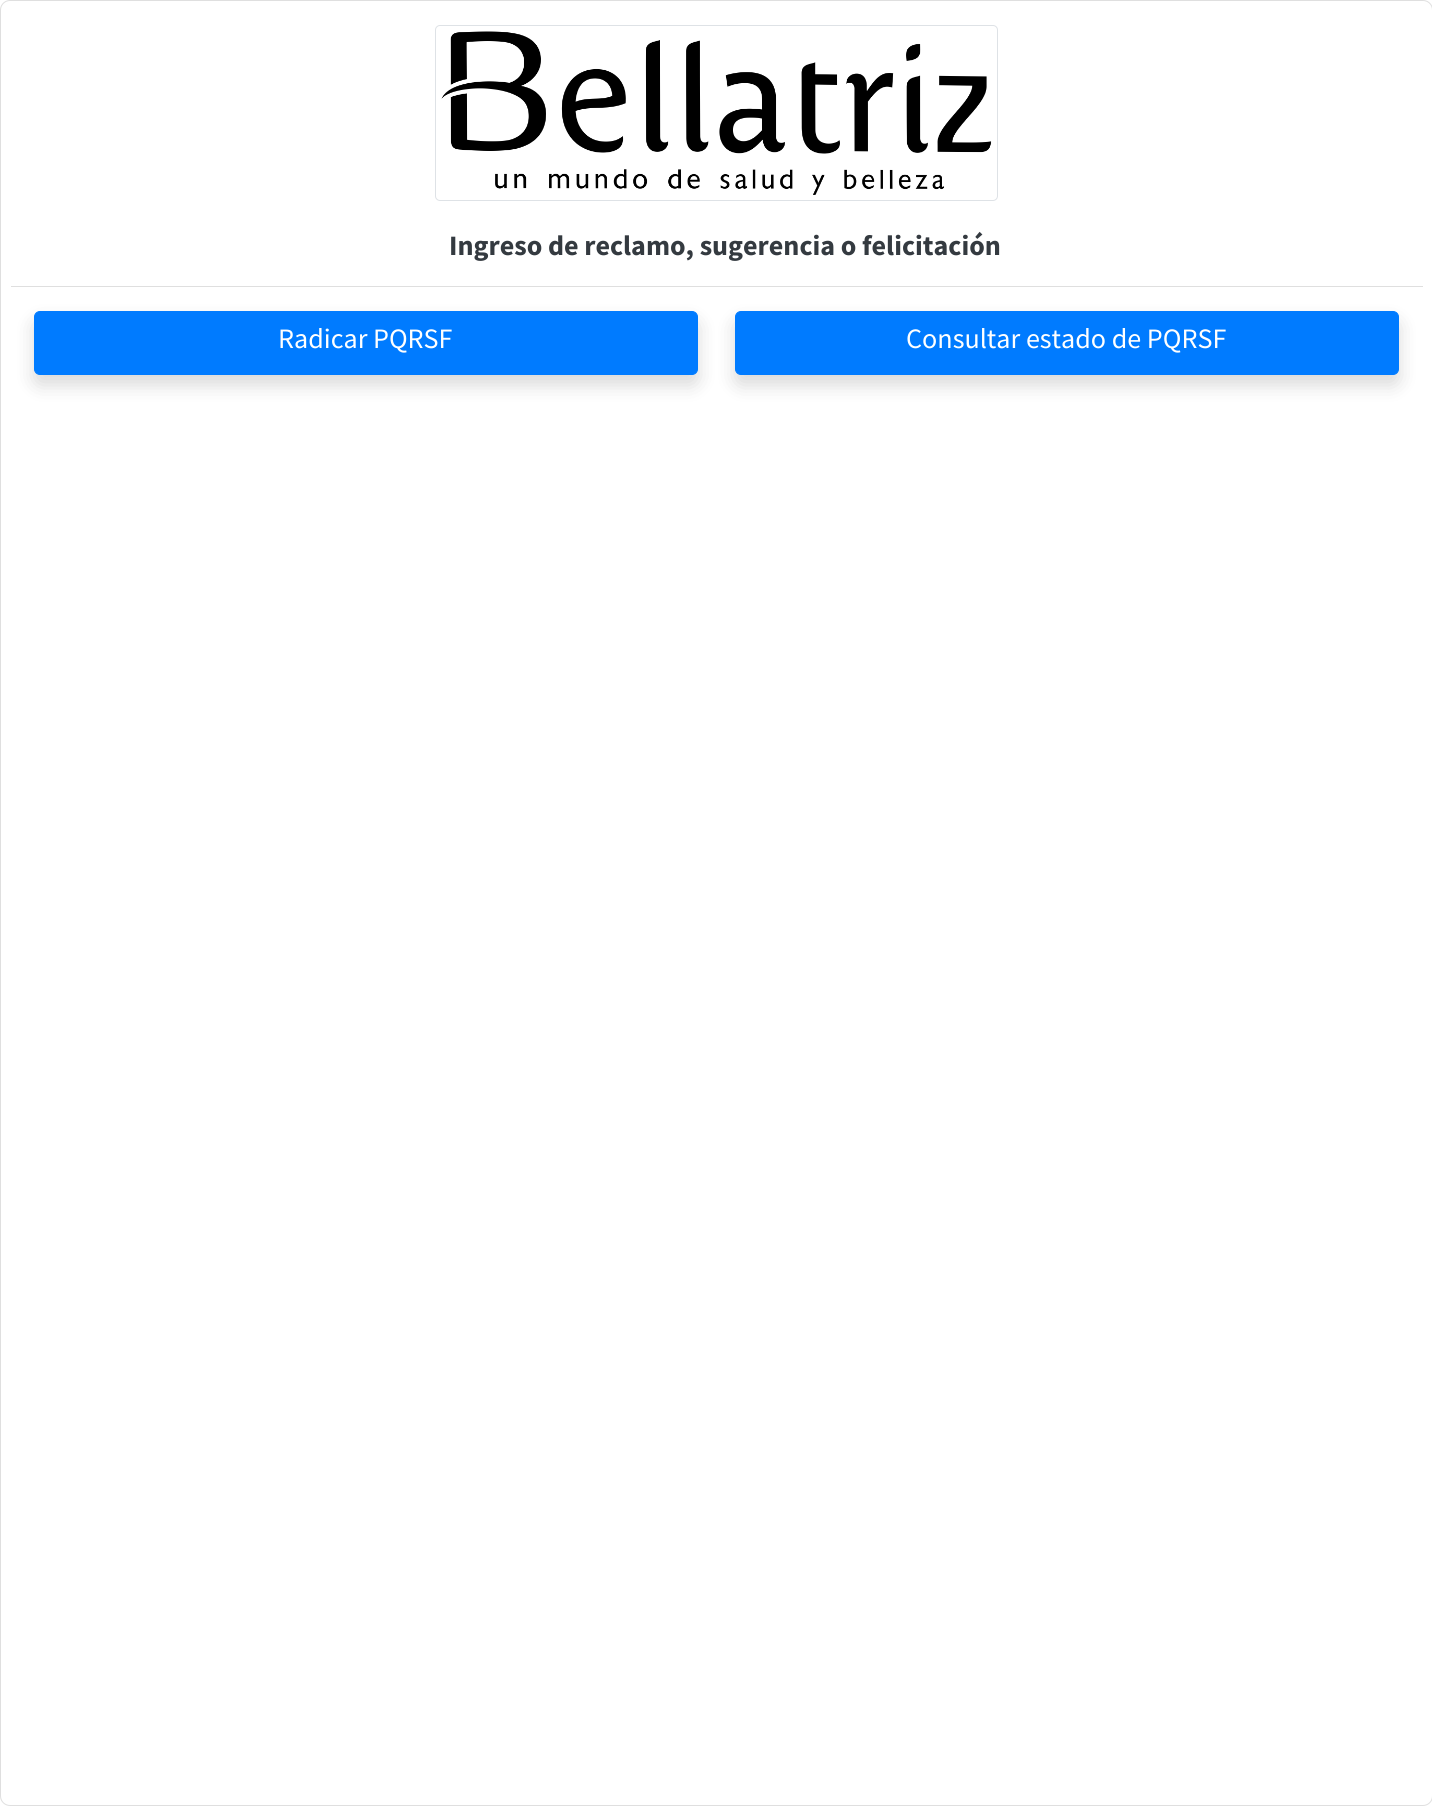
#include <cairo.h>
#include <math.h>
#include <stddef.h>

static cairo_t *ctx;

static void use_color(int r, int g, int b) {
    cairo_set_source_rgb(ctx, r / 255.0, g / 255.0, b / 255.0);
}

static void round_rect(double x, double y, double w, double h, double r) {
    cairo_new_sub_path(ctx);
    cairo_arc(ctx, x + w - r, y + h - r, r, 0, M_PI / 2);
    cairo_arc(ctx, x + r, y + h - r, r, M_PI / 2, M_PI);
    cairo_arc(ctx, x + r, y + r, r, M_PI, 1.5 * M_PI);
    cairo_arc(ctx, x + w - r, y + r, r, 1.5 * M_PI, 2 * M_PI);
    cairo_close_path(ctx);
}

static void shadow(double x, double y, double w, double h, double r, double blur, double alpha) {
    cairo_push_group_with_content(ctx, CAIRO_CONTENT_ALPHA);
    cairo_set_operator(ctx, CAIRO_OPERATOR_SOURCE);
    for (int i = 15; i >= -15 && fmin(w, h) + blur * i / 3 > 0; i -= 2) {
        double e = blur * i / 6;
        cairo_set_source_rgba(ctx, 0, 0, 0, alpha * erfc((i - 1) / 8.5) / 2);
        round_rect(x - e, y - e, w + 2 * e, h + 2 * e, fmax(0, fmin(r + e + blur * .6, fmin(w, h) / 2 + e)));
        cairo_fill(ctx);
    }
    cairo_pattern_t *soft = cairo_pop_group(ctx);
    cairo_mask(ctx, soft);
    cairo_pattern_destroy(soft);
}

static void picture(const char *path, double x, double y, double w, double h) {
    cairo_surface_t *image = cairo_image_surface_create_from_png(path);
    cairo_save(ctx);
    cairo_set_source_surface(ctx, image, x, y);
    cairo_rectangle(ctx, x, y, w, h);
    cairo_fill(ctx);
    cairo_restore(ctx);
    cairo_surface_destroy(image);
}

int main(void) {
    cairo_surface_t *surface = cairo_image_surface_create(CAIRO_FORMAT_RGB24, 1432, 1806);
    ctx = cairo_create(surface);
    cairo_font_options_t *options = cairo_font_options_create();
    cairo_font_options_set_hint_metrics(options, CAIRO_HINT_METRICS_OFF);
    cairo_font_options_set_hint_style(options, CAIRO_HINT_STYLE_NONE);
    cairo_set_font_options(ctx, options);
    cairo_set_miter_limit(ctx, 4);
    use_color(255, 255, 255);
    cairo_paint(ctx);
    round_rect(0.5, 0.5, 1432, 1805, 9.5);
    use_color(223, 223, 223);
    cairo_set_line_width(ctx, 1);
    cairo_stroke(ctx);
    cairo_rectangle(ctx, 11, 286, 1412, 1);
    cairo_fill(ctx);
    round_rect(435.5, 25.5, 562, 175, 4.5);
    use_color(222, 226, 230);
    cairo_stroke(ctx);
    picture("img1.png", 441, 31, 551, 164);
    cairo_select_font_face(ctx, "Source Sans Pro", CAIRO_FONT_SLANT_NORMAL, CAIRO_FONT_WEIGHT_BOLD);
    cairo_set_font_size(ctx, 28.1);
    use_color(52, 58, 64);
    cairo_move_to(ctx, 449, 255);
    cairo_show_text(ctx, "Ingreso de reclamo, sugerencia o felicitación");
    use_color(0, 0, 0);
    shadow(34, 321, 664, 64, 6, 9.5, 0.15);
    use_color(0, 123, 255);
    round_rect(34.5, 311.5, 663, 63, 5.5);
    cairo_fill_preserve(ctx);
    cairo_stroke(ctx);
    cairo_select_font_face(ctx, "Source Sans Pro", CAIRO_FONT_SLANT_NORMAL, CAIRO_FONT_WEIGHT_NORMAL);
    use_color(255, 255, 255);
    cairo_move_to(ctx, 278, 348);
    cairo_show_text(ctx, "Radicar PQRSF");
    use_color(0, 0, 0);
    shadow(735, 321, 664, 64, 6, 9.5, 0.15);
    use_color(0, 123, 255);
    round_rect(735.5, 311.5, 663, 63, 5.5);
    cairo_fill_preserve(ctx);
    cairo_stroke(ctx);
    use_color(255, 255, 255);
    cairo_move_to(ctx, 906, 348);
    cairo_show_text(ctx, "Consultar estado de PQRSF");
    cairo_surface_write_to_png(surface, "result.png");
    cairo_font_options_destroy(options);
    cairo_destroy(ctx);
    cairo_surface_destroy(surface);
    return 0;
}
